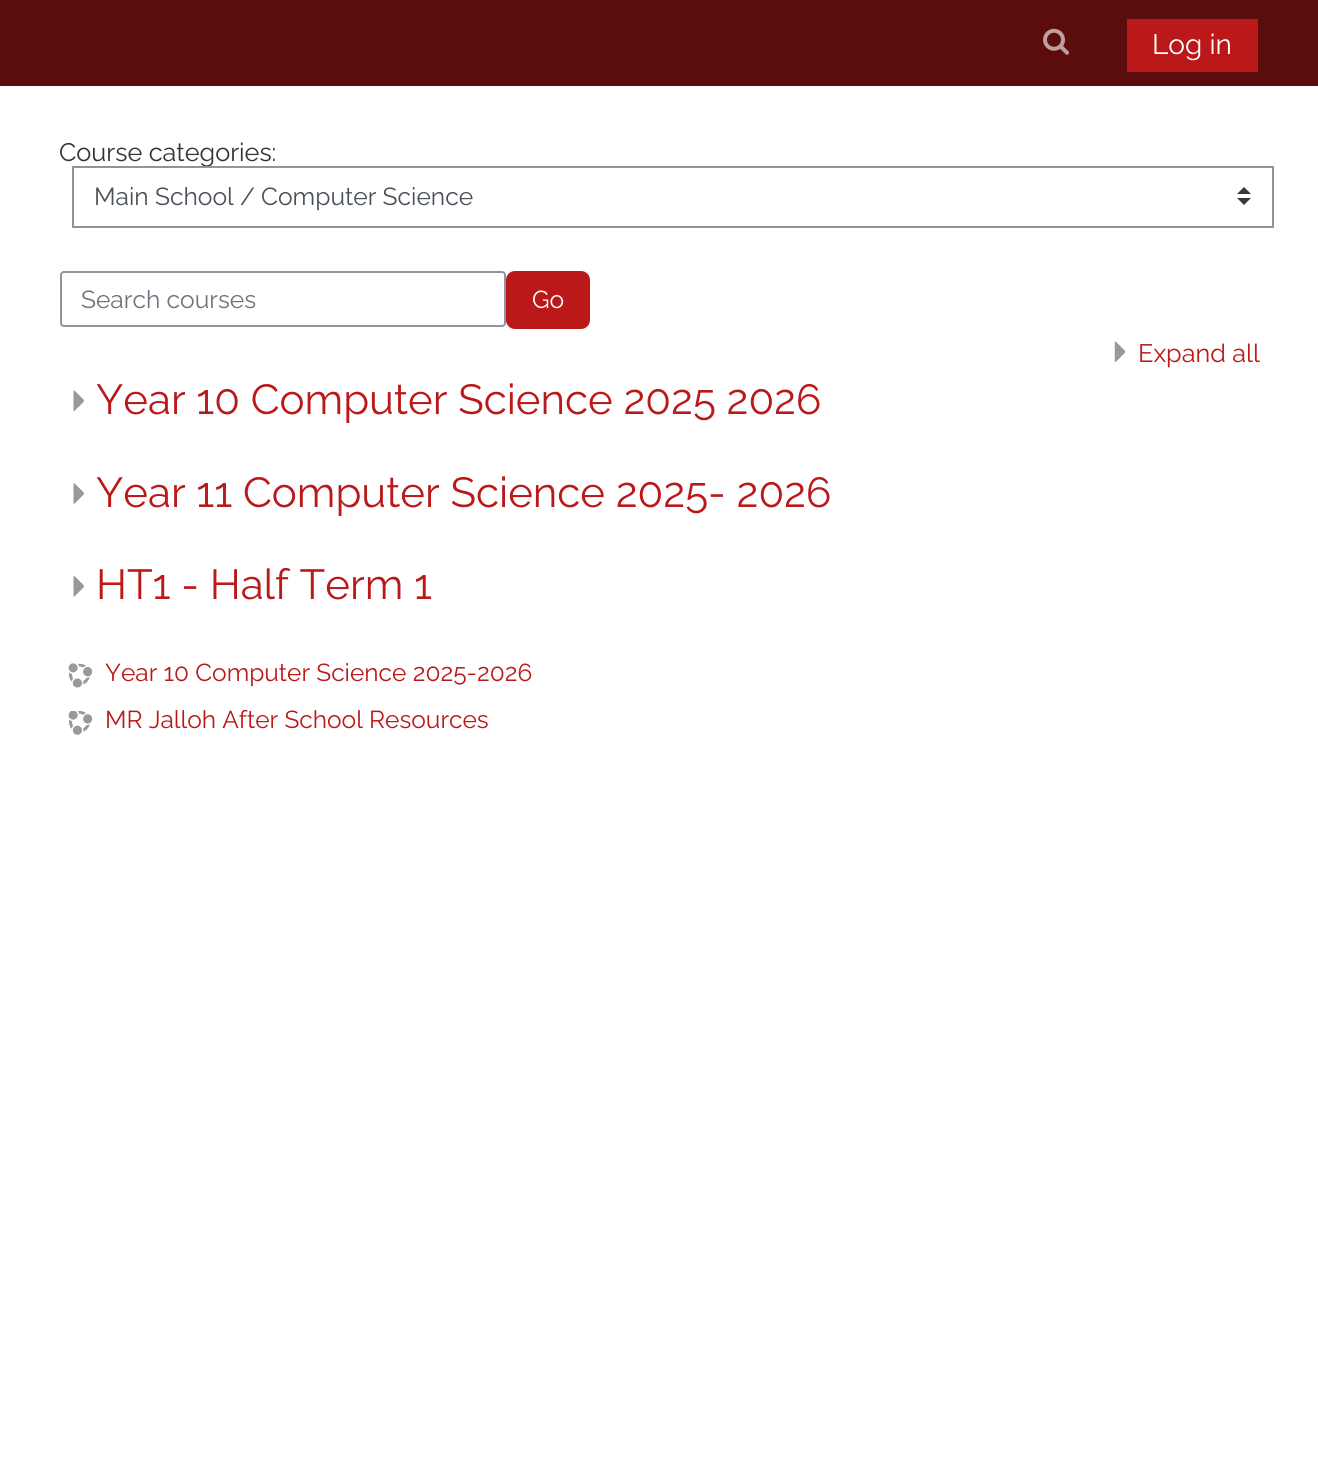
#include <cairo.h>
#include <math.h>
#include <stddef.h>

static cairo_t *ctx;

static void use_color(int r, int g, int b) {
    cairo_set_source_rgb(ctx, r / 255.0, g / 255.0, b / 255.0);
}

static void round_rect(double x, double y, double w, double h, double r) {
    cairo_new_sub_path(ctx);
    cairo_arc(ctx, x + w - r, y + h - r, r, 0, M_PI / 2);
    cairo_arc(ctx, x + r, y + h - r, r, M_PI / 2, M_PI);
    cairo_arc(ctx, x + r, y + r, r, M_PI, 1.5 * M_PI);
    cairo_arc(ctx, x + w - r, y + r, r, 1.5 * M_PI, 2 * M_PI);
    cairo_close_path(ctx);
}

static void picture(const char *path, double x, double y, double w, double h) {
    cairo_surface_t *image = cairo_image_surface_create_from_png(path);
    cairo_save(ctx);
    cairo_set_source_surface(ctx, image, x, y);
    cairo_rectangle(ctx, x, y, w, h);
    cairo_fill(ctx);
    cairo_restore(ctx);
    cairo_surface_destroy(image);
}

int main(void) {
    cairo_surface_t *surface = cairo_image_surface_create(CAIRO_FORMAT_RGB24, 1318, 1460);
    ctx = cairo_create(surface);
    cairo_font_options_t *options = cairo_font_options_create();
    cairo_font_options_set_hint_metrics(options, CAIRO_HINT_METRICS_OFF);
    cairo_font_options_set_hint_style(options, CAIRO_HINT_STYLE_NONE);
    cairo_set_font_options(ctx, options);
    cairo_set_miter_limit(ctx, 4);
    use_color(255, 255, 255);
    cairo_paint(ctx);
    use_color(90, 13, 12);
    cairo_rectangle(ctx, 0, 0, 1318, 86);
    cairo_fill(ctx);
    picture("img1.png", 1043, 28, 26, 27);
    use_color(187, 24, 25);
    cairo_rectangle(ctx, 1127, 19, 131, 53);
    cairo_fill(ctx);
    cairo_select_font_face(ctx, "Raleway Thin", CAIRO_FONT_SLANT_NORMAL, CAIRO_FONT_WEIGHT_NORMAL);
    cairo_set_font_size(ctx, 28);
    use_color(255, 255, 255);
    cairo_move_to(ctx, 1152, 54);
    cairo_show_text(ctx, "Log in");
    cairo_set_font_size(ctx, 25.25);
    use_color(51, 51, 51);
    cairo_move_to(ctx, 59, 161);
    cairo_show_text(ctx, "Course categories:");
    use_color(52, 58, 64);
    cairo_new_path(ctx);
    cairo_move_to(ctx, 1244, 187);
    cairo_line_to(ctx, 1237, 194);
    cairo_line_to(ctx, 1251, 194);
    cairo_close_path(ctx);
    cairo_move_to(ctx, 1244, 205);
    cairo_line_to(ctx, 1237, 198);
    cairo_line_to(ctx, 1251, 198);
    cairo_close_path(ctx);
    cairo_fill(ctx);
    cairo_rectangle(ctx, 73, 167, 1200, 60);
    use_color(143, 149, 158);
    cairo_stroke(ctx);
    cairo_set_font_size(ctx, 24.6);
    use_color(73, 80, 87);
    cairo_move_to(ctx, 94, 205);
    cairo_show_text(ctx, "Main School / Computer Science");
    round_rect(61, 272, 444, 54, 3);
    use_color(143, 149, 158);
    cairo_stroke(ctx);
    use_color(108, 117, 125);
    cairo_move_to(ctx, 81, 308);
    cairo_show_text(ctx, "Search courses");
    use_color(187, 24, 25);
    round_rect(506, 271, 84, 58, 9);
    cairo_fill(ctx);
    cairo_set_font_size(ctx, 24.5);
    use_color(255, 255, 255);
    cairo_move_to(ctx, 532, 308);
    cairo_show_text(ctx, "Go");
    picture("img2.png", 1114, 341, 12, 21);
    cairo_set_font_size(ctx, 25.25);
    use_color(187, 24, 25);
    cairo_move_to(ctx, 1138, 362);
    cairo_show_text(ctx, "Expand all");
    picture("img3.png", 73, 390, 11, 21);
    cairo_set_font_size(ctx, 42);
    cairo_move_to(ctx, 96, 414);
    cairo_show_text(ctx, "Year 10 Computer Science 2025 2026");
    picture("img4.png", 73, 483, 11, 21);
    cairo_move_to(ctx, 96, 507);
    cairo_show_text(ctx, "Year 11 Computer Science 2025- 2026");
    picture("img5.png", 73, 576, 11, 21);
    cairo_move_to(ctx, 96, 599);
    cairo_show_text(ctx, "HT1 - Half Term 1");
    picture("img6.png", 68, 663, 25, 25);
    cairo_set_font_size(ctx, 24.5);
    cairo_move_to(ctx, 105, 681);
    cairo_show_text(ctx, "Year 10 Computer Science 2025-2026");
    picture("img7.png", 68, 711, 25, 24);
    cairo_move_to(ctx, 105, 728);
    cairo_show_text(ctx, "MR Jalloh After School Resources");
    cairo_surface_write_to_png(surface, "result.png");
    cairo_font_options_destroy(options);
    cairo_destroy(ctx);
    cairo_surface_destroy(surface);
    return 0;
}
